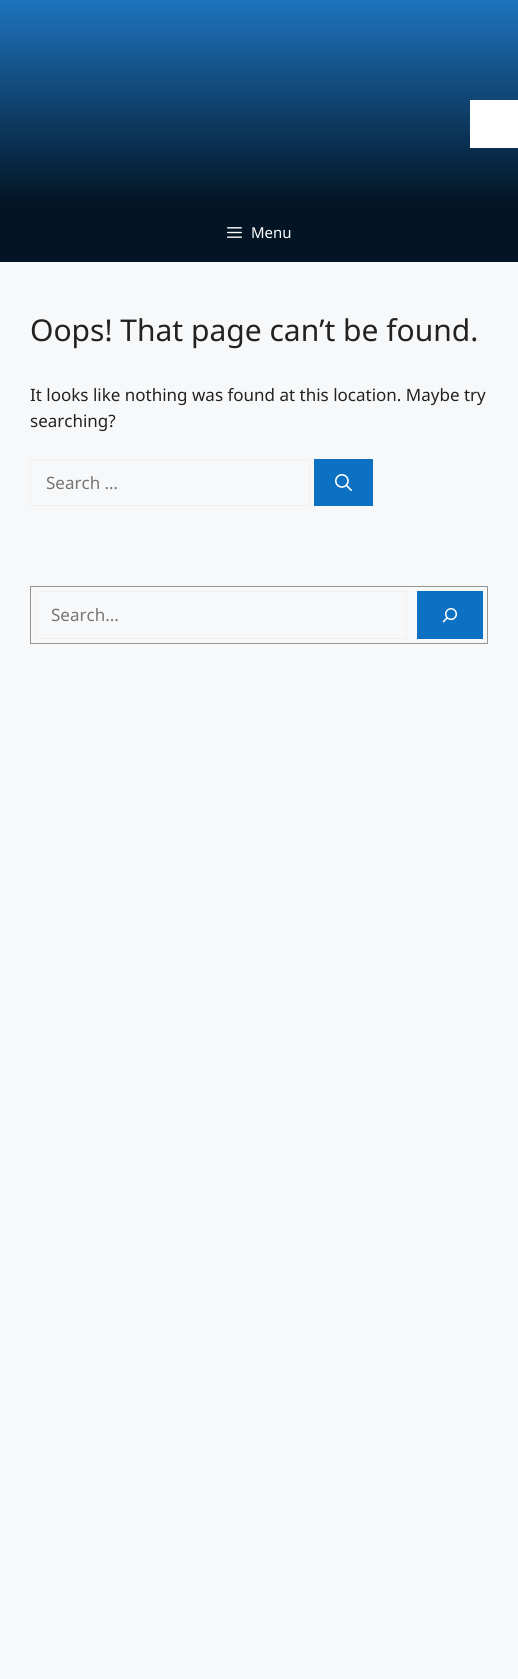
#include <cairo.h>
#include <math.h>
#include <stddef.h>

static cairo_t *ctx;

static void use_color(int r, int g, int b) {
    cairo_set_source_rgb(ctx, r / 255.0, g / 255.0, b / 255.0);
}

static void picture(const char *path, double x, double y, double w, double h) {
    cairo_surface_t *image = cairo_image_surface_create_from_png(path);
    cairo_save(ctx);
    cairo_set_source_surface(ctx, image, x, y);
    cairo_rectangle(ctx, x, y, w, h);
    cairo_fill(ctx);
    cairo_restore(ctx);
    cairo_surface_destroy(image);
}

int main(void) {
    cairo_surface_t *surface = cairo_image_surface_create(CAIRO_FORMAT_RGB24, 518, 1679);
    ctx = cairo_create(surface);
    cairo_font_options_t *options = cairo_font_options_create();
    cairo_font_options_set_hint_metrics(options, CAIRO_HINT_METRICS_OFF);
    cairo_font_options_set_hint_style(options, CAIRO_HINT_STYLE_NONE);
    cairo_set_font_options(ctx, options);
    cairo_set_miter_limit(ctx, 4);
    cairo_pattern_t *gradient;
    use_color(247, 248, 249);
    cairo_paint(ctx);
    gradient = cairo_pattern_create_linear(259, 0, 259, 202);
    cairo_pattern_add_color_stop_rgba(gradient, 0, 0.118, 0.451, 0.745, 1);
    cairo_pattern_add_color_stop_rgba(gradient, 1, 0.012, 0.082, 0.145, 1);
    cairo_set_source(ctx, gradient);
    cairo_pattern_destroy(gradient);
    cairo_rectangle(ctx, 0, 0, 518, 202);
    cairo_fill(ctx);
    use_color(255, 255, 255);
    cairo_rectangle(ctx, 470, 100, 48, 48);
    cairo_fill(ctx);
    use_color(3, 21, 37);
    cairo_rectangle(ctx, 0, 202, 518, 60);
    cairo_fill(ctx);
    picture("img1.png", 227, 227, 15, 11);
    cairo_select_font_face(ctx, "Noto Sans", CAIRO_FONT_SLANT_NORMAL, CAIRO_FONT_WEIGHT_NORMAL);
    cairo_set_font_size(ctx, 15);
    use_color(255, 255, 255);
    cairo_move_to(ctx, 251, 238);
    cairo_show_text(ctx, "Menu");
    cairo_set_font_size(ctx, 30);
    use_color(34, 34, 34);
    cairo_move_to(ctx, 30, 341);
    cairo_show_text(ctx, "Oops! That page can’t be found.");
    cairo_set_font_size(ctx, 17);
    cairo_move_to(ctx, 30, 401);
    cairo_show_text(ctx, "It looks like nothing was found at this location. Maybe try");
    cairo_move_to(ctx, 30, 427);
    cairo_show_text(ctx, "searching?");
    cairo_rectangle(ctx, 30.5, 459.5, 279, 46);
    use_color(240, 240, 240);
    cairo_set_line_width(ctx, 1);
    cairo_stroke(ctx);
    use_color(117, 117, 117);
    cairo_move_to(ctx, 46, 489);
    cairo_show_text(ctx, "Search …");
    use_color(12, 113, 195);
    cairo_rectangle(ctx, 314, 459, 59, 47);
    cairo_fill(ctx);
    picture("img2.png", 335, 474, 17, 17);
    cairo_rectangle(ctx, 30.5, 586.5, 457, 57);
    use_color(148, 148, 148);
    cairo_stroke(ctx);
    cairo_rectangle(ctx, 35.5, 591.5, 371, 47);
    use_color(240, 240, 240);
    cairo_stroke(ctx);
    use_color(117, 117, 117);
    cairo_move_to(ctx, 51, 621);
    cairo_show_text(ctx, "Search...");
    use_color(12, 113, 195);
    cairo_rectangle(ctx, 417, 591, 66, 48);
    cairo_fill(ctx);
    picture("img3.png", 442, 608, 16, 15);
    cairo_surface_write_to_png(surface, "result.png");
    cairo_font_options_destroy(options);
    cairo_destroy(ctx);
    cairo_surface_destroy(surface);
    return 0;
}
